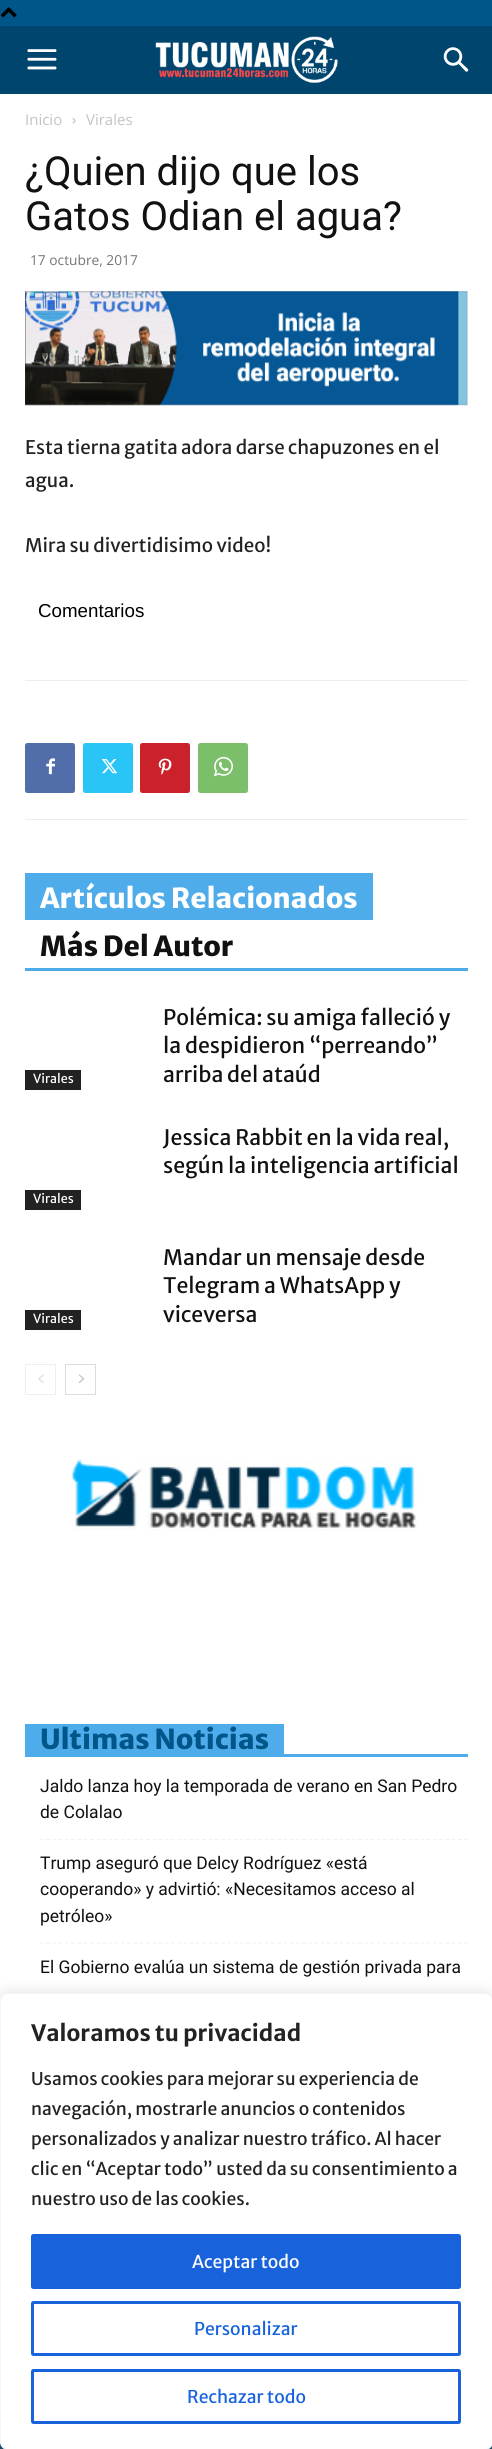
#include <cairo.h>
#include <math.h>
#include <stddef.h>

static cairo_t *ctx;

static void use_color(int r, int g, int b) {
    cairo_set_source_rgb(ctx, r / 255.0, g / 255.0, b / 255.0);
}

static void round_rect(double x, double y, double w, double h, double r) {
    cairo_new_sub_path(ctx);
    cairo_arc(ctx, x + w - r, y + h - r, r, 0, M_PI / 2);
    cairo_arc(ctx, x + r, y + h - r, r, M_PI / 2, M_PI);
    cairo_arc(ctx, x + r, y + r, r, M_PI, 1.5 * M_PI);
    cairo_arc(ctx, x + w - r, y + r, r, 1.5 * M_PI, 2 * M_PI);
    cairo_close_path(ctx);
}

static void shadow(double x, double y, double w, double h, double r, double blur, double alpha) {
    cairo_push_group_with_content(ctx, CAIRO_CONTENT_ALPHA);
    cairo_set_operator(ctx, CAIRO_OPERATOR_SOURCE);
    for (int i = 15; i >= -15 && fmin(w, h) + blur * i / 3 > 0; i -= 2) {
        double e = blur * i / 6;
        cairo_set_source_rgba(ctx, 0, 0, 0, alpha * erfc((i - 1) / 8.5) / 2);
        round_rect(x - e, y - e, w + 2 * e, h + 2 * e, fmax(0, fmin(r + e + blur * .6, fmin(w, h) / 2 + e)));
        cairo_fill(ctx);
    }
    cairo_pattern_t *soft = cairo_pop_group(ctx);
    cairo_mask(ctx, soft);
    cairo_pattern_destroy(soft);
}

static void picture(const char *path, double x, double y, double w, double h) {
    cairo_surface_t *image = cairo_image_surface_create_from_png(path);
    cairo_save(ctx);
    cairo_set_source_surface(ctx, image, x, y);
    cairo_rectangle(ctx, x, y, w, h);
    cairo_fill(ctx);
    cairo_restore(ctx);
    cairo_surface_destroy(image);
}

int main(void) {
    cairo_surface_t *surface = cairo_image_surface_create(CAIRO_FORMAT_RGB24, 492, 2449);
    ctx = cairo_create(surface);
    cairo_font_options_t *options = cairo_font_options_create();
    cairo_font_options_set_hint_metrics(options, CAIRO_HINT_METRICS_OFF);
    cairo_font_options_set_hint_style(options, CAIRO_HINT_STYLE_NONE);
    cairo_set_font_options(ctx, options);
    cairo_set_miter_limit(ctx, 4);
    use_color(0, 86, 137);
    cairo_paint(ctx);
    picture("img1.png", 1, 7, 16, 11);
    use_color(0, 69, 110);
    cairo_rectangle(ctx, 0, 26, 492, 68);
    cairo_fill(ctx);
    picture("img2.png", 27, 49, 30, 21);
    picture("img3.png", 155, 36, 183, 47);
    picture("img4.png", 443, 47, 26, 25);
    use_color(255, 255, 255);
    cairo_rectangle(ctx, 0, 94, 492, 1907);
    cairo_fill(ctx);
    cairo_select_font_face(ctx, "Open Sans", CAIRO_FONT_SLANT_NORMAL, CAIRO_FONT_WEIGHT_NORMAL);
    cairo_set_font_size(ctx, 15);
    use_color(195, 195, 195);
    cairo_move_to(ctx, 25, 125);
    cairo_show_text(ctx, "Inicio");
    picture("img5.png", 72, 118, 4, 6);
    cairo_move_to(ctx, 86, 125);
    cairo_show_text(ctx, "Virales");
    cairo_select_font_face(ctx, "Roboto", CAIRO_FONT_SLANT_NORMAL, CAIRO_FONT_WEIGHT_NORMAL);
    cairo_set_font_size(ctx, 40);
    use_color(17, 17, 17);
    cairo_move_to(ctx, 25, 185);
    cairo_show_text(ctx, "¿Quien dijo que los");
    cairo_move_to(ctx, 25, 230);
    cairo_show_text(ctx, "Gatos Odian el agua?");
    cairo_select_font_face(ctx, "Open Sans", CAIRO_FONT_SLANT_NORMAL, CAIRO_FONT_WEIGHT_NORMAL);
    cairo_set_font_size(ctx, 13.75);
    use_color(118, 118, 118);
    cairo_move_to(ctx, 30, 265);
    cairo_show_text(ctx, "17 octubre, 2017");
    picture("img6.png", 25, 291, 443, 115);
    cairo_select_font_face(ctx, "Merriweather Sans", CAIRO_FONT_SLANT_NORMAL, CAIRO_FONT_WEIGHT_NORMAL);
    cairo_set_font_size(ctx, 18.75);
    use_color(34, 34, 34);
    cairo_move_to(ctx, 25, 454);
    cairo_show_text(ctx, "Esta tierna gatita adora darse chapuzones en el");
    cairo_move_to(ctx, 25, 487);
    cairo_show_text(ctx, "agua.");
    cairo_move_to(ctx, 25, 552);
    cairo_show_text(ctx, "Mira su divertidisimo video!");
    cairo_select_font_face(ctx, "Liberation Sans", CAIRO_FONT_SLANT_NORMAL, CAIRO_FONT_WEIGHT_NORMAL);
    use_color(0, 0, 0);
    cairo_move_to(ctx, 38, 617);
    cairo_show_text(ctx, "Comentarios");
    use_color(237, 237, 237);
    cairo_rectangle(ctx, 25, 680, 443, 1);
    cairo_fill(ctx);
    cairo_rectangle(ctx, 25, 819, 443, 1);
    cairo_fill(ctx);
    use_color(81, 110, 171);
    round_rect(25, 743, 50, 50, 2.5);
    cairo_fill(ctx);
    picture("img7.png", 46, 758, 9, 17);
    use_color(41, 197, 246);
    round_rect(83, 743, 50, 50, 2.5);
    cairo_fill(ctx);
    picture("img8.png", 101, 759, 17, 15);
    use_color(202, 33, 42);
    round_rect(140, 743, 50, 50, 2.5);
    cairo_fill(ctx);
    picture("img9.png", 158, 758, 14, 17);
    use_color(123, 191, 106);
    round_rect(198, 743, 50, 50, 2.5);
    cairo_fill(ctx);
    picture("img10.png", 213, 756, 20, 21);
    use_color(79, 172, 234);
    cairo_rectangle(ctx, 25, 968, 443, 3);
    cairo_fill(ctx);
    cairo_rectangle(ctx, 25, 873, 348, 47);
    cairo_fill(ctx);
    cairo_select_font_face(ctx, "Merriweather Sans ExtraBold", CAIRO_FONT_SLANT_NORMAL, CAIRO_FONT_WEIGHT_NORMAL);
    cairo_set_font_size(ctx, 27.5);
    use_color(255, 255, 255);
    cairo_move_to(ctx, 40, 908);
    cairo_show_text(ctx, "Artículos Relacionados");
    use_color(17, 17, 17);
    cairo_move_to(ctx, 40, 956);
    cairo_show_text(ctx, "Más Del Autor");
    use_color(34, 34, 34);
    cairo_rectangle(ctx, 25, 1070, 56, 20);
    cairo_fill(ctx);
    cairo_select_font_face(ctx, "Merriweather Sans", CAIRO_FONT_SLANT_NORMAL, CAIRO_FONT_WEIGHT_NORMAL);
    cairo_set_font_size(ctx, 12.5);
    use_color(255, 255, 255);
    cairo_move_to(ctx, 33, 1083);
    cairo_show_text(ctx, "Virales");
    cairo_set_font_size(ctx, 21.25);
    use_color(17, 17, 17);
    cairo_move_to(ctx, 163, 1025);
    cairo_show_text(ctx, "Polémica: su amiga falleció y");
    cairo_move_to(ctx, 163, 1053);
    cairo_show_text(ctx, "la despidieron “perreando”");
    cairo_move_to(ctx, 163, 1082);
    cairo_show_text(ctx, "arriba del ataúd");
    cairo_move_to(ctx, 163, 1145);
    cairo_show_text(ctx, "Jessica Rabbit en la vida real,");
    cairo_move_to(ctx, 163, 1173);
    cairo_show_text(ctx, "según la inteligencia artificial");
    use_color(34, 34, 34);
    cairo_rectangle(ctx, 25, 1190, 56, 20);
    cairo_fill(ctx);
    cairo_set_font_size(ctx, 12.5);
    use_color(255, 255, 255);
    cairo_move_to(ctx, 33, 1203);
    cairo_show_text(ctx, "Virales");
    use_color(34, 34, 34);
    cairo_rectangle(ctx, 25, 1310, 56, 20);
    cairo_fill(ctx);
    use_color(255, 255, 255);
    cairo_move_to(ctx, 33, 1323);
    cairo_show_text(ctx, "Virales");
    cairo_set_font_size(ctx, 21.25);
    use_color(17, 17, 17);
    cairo_move_to(ctx, 163, 1265);
    cairo_show_text(ctx, "Mandar un mensaje desde");
    cairo_move_to(ctx, 163, 1293);
    cairo_show_text(ctx, "Telegram a WhatsApp y");
    cairo_move_to(ctx, 163, 1322);
    cairo_show_text(ctx, "viceversa");
    cairo_rectangle(ctx, 25.5, 1364.5, 30, 30);
    use_color(238, 238, 238);
    cairo_set_line_width(ctx, 1);
    cairo_stroke(ctx);
    picture("img11.png", 38, 1374, 6, 9);
    cairo_rectangle(ctx, 65.5, 1364.5, 30, 30);
    use_color(220, 220, 220);
    cairo_stroke(ctx);
    picture("img12.png", 78, 1374, 7, 9);
    picture("img13.png", 71, 1459, 346, 72);
    use_color(79, 172, 234);
    cairo_rectangle(ctx, 25, 1754, 443, 3);
    cairo_fill(ctx);
    cairo_rectangle(ctx, 25, 1724, 259, 30);
    cairo_fill(ctx);
    cairo_select_font_face(ctx, "Merriweather Sans ExtraBold", CAIRO_FONT_SLANT_NORMAL, CAIRO_FONT_WEIGHT_NORMAL);
    cairo_set_font_size(ctx, 27.5);
    use_color(0, 86, 137);
    cairo_move_to(ctx, 40, 1749);
    cairo_show_text(ctx, "Ultimas Noticias");
    cairo_new_path(ctx);
    cairo_move_to(ctx, 40, 1839.5);
    cairo_line_to(ctx, 467.5, 1839.5);
    use_color(241, 241, 241);
    cairo_set_line_width(ctx, 1.2);
    cairo_set_dash(ctx, (double[]){3.75, 2.49}, 2, 0);
    cairo_stroke(ctx);
    cairo_select_font_face(ctx, "Roboto", CAIRO_FONT_SLANT_NORMAL, CAIRO_FONT_WEIGHT_NORMAL);
    cairo_set_font_size(ctx, 17.5);
    use_color(17, 17, 17);
    cairo_move_to(ctx, 40, 1792);
    cairo_show_text(ctx, "Jaldo lanza hoy la temporada de verano en San Pedro");
    cairo_move_to(ctx, 40, 1818);
    cairo_show_text(ctx, "de Colalao");
    cairo_new_path(ctx);
    cairo_move_to(ctx, 40, 1943);
    cairo_line_to(ctx, 467.5, 1943);
    use_color(241, 241, 241);
    cairo_stroke(ctx);
    use_color(17, 17, 17);
    cairo_move_to(ctx, 40, 1869);
    cairo_show_text(ctx, "Trump aseguró que Delcy Rodríguez «está");
    cairo_move_to(ctx, 40, 1895);
    cairo_show_text(ctx, "cooperando» y advirtió: «Necesitamos acceso al");
    cairo_move_to(ctx, 40, 1922);
    cairo_show_text(ctx, "petróleo»");
    cairo_move_to(ctx, 40, 1973);
    cairo_show_text(ctx, "El Gobierno evalúa un sistema de gestión privada para");
    use_color(34, 34, 34);
    cairo_rectangle(ctx, 0, 2442, 492, 7);
    cairo_fill(ctx);
    picture("img14.png", 0, 2442, 492, 7);
    use_color(172, 171, 171);
    shadow(0, 1991, 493, 458, 8, 6, 0.3);
    use_color(255, 255, 255);
    round_rect(0.5, 1993.5, 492, 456, 7.5);
    cairo_fill_preserve(ctx);
    use_color(244, 244, 244);
    cairo_set_line_width(ctx, 1);
    cairo_set_dash(ctx, NULL, 0, 0);
    cairo_stroke(ctx);
    cairo_select_font_face(ctx, "Merriweather Sans", CAIRO_FONT_SLANT_NORMAL, CAIRO_FONT_WEIGHT_BOLD);
    cairo_set_font_size(ctx, 22.5);
    use_color(34, 34, 34);
    cairo_move_to(ctx, 31, 2041);
    cairo_show_text(ctx, "Valoramos tu privacidad");
    cairo_select_font_face(ctx, "Merriweather Sans", CAIRO_FONT_SLANT_NORMAL, CAIRO_FONT_WEIGHT_NORMAL);
    cairo_set_font_size(ctx, 17.5);
    cairo_move_to(ctx, 31, 2085);
    cairo_show_text(ctx, "Usamos cookies para mejorar su experiencia de");
    cairo_move_to(ctx, 31, 2115);
    cairo_show_text(ctx, "navegación, mostrarle anuncios o contenidos");
    cairo_move_to(ctx, 31, 2145);
    cairo_show_text(ctx, "personalizados y analizar nuestro tráfico. Al hacer");
    cairo_move_to(ctx, 31, 2175);
    cairo_show_text(ctx, "clic en “Aceptar todo” usted da su consentimiento a");
    cairo_move_to(ctx, 31, 2205);
    cairo_show_text(ctx, "nuestro uso de las cookies.");
    use_color(24, 99, 220);
    round_rect(32.5, 2235.5, 427, 52, 1);
    cairo_fill_preserve(ctx);
    cairo_set_line_width(ctx, 3);
    cairo_stroke(ctx);
    use_color(255, 255, 255);
    cairo_move_to(ctx, 192, 2268);
    cairo_show_text(ctx, "Aceptar todo");
    round_rect(32.5, 2302.5, 427, 52, 1);
    use_color(24, 99, 220);
    cairo_stroke(ctx);
    cairo_move_to(ctx, 194, 2335);
    cairo_show_text(ctx, "Personalizar");
    round_rect(32.5, 2370.5, 427, 52, 1);
    cairo_stroke(ctx);
    cairo_move_to(ctx, 187, 2403);
    cairo_show_text(ctx, "Rechazar todo");
    cairo_surface_write_to_png(surface, "result.png");
    cairo_font_options_destroy(options);
    cairo_destroy(ctx);
    cairo_surface_destroy(surface);
    return 0;
}
